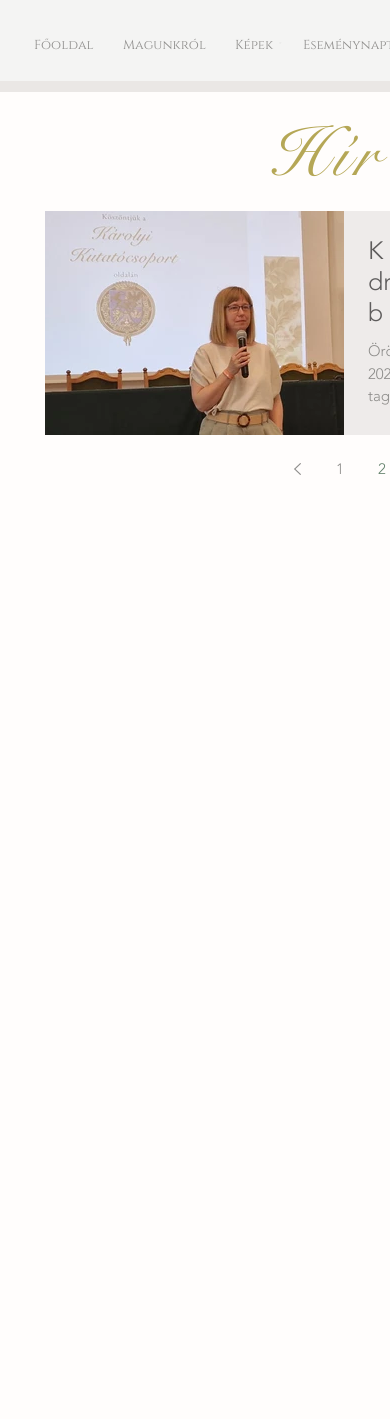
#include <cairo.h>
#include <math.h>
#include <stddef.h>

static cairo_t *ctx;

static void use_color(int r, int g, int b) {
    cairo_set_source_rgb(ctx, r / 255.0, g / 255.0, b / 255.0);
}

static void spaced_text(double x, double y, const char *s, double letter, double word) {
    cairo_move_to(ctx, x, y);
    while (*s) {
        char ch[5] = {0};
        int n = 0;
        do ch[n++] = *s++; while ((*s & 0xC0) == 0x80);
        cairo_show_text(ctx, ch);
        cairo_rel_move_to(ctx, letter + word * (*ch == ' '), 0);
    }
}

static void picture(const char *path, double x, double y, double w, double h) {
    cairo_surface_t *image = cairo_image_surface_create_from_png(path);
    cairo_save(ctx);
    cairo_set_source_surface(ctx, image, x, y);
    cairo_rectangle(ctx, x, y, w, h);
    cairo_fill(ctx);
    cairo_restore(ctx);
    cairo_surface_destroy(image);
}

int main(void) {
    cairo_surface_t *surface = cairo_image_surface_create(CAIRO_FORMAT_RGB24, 390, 1419);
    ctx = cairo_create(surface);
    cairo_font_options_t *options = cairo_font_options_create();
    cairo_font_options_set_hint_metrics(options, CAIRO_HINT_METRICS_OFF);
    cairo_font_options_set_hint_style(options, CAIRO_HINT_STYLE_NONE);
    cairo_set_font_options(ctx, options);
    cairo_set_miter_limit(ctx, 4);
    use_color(234, 231, 229);
    cairo_paint(ctx);
    use_color(244, 244, 243);
    cairo_rectangle(ctx, 0, 0, 390, 81);
    cairo_fill(ctx);
    picture("img1.png", 79, 42, 252, 4);
    cairo_select_font_face(ctx, "Cinzel", CAIRO_FONT_SLANT_NORMAL, CAIRO_FONT_WEIGHT_NORMAL);
    cairo_set_font_size(ctx, 13);
    use_color(140, 139, 137);
    cairo_move_to(ctx, 34, 49);
    cairo_show_text(ctx, "Főoldal");
    cairo_move_to(ctx, 123, 49);
    cairo_show_text(ctx, "Magunkról");
    cairo_move_to(ctx, 235, 49);
    cairo_show_text(ctx, "Képek");
    cairo_move_to(ctx, 303, 49);
    cairo_show_text(ctx, "Eseménynapt");
    use_color(255, 253, 252);
    cairo_rectangle(ctx, 0, 92, 390, 1327);
    cairo_fill(ctx);
    cairo_select_font_face(ctx, "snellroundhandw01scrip", CAIRO_FONT_SLANT_NORMAL, CAIRO_FONT_WEIGHT_NORMAL);
    cairo_set_font_size(ctx, 69);
    use_color(181, 167, 86);
    spaced_text(269, 175, "Hír", 7, 0);
    picture("img2.png", 45, 211, 299, 224);
    use_color(238, 235, 234);
    cairo_rectangle(ctx, 344, 211, 46, 224);
    cairo_fill(ctx);
    cairo_select_font_face(ctx, "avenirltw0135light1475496 Light", CAIRO_FONT_SLANT_NORMAL, CAIRO_FONT_WEIGHT_NORMAL);
    cairo_set_font_size(ctx, 25);
    use_color(94, 92, 92);
    cairo_move_to(ctx, 368, 259);
    cairo_show_text(ctx, "K");
    cairo_move_to(ctx, 368, 290);
    cairo_show_text(ctx, "dr");
    cairo_move_to(ctx, 368, 321);
    cairo_show_text(ctx, "b");
    cairo_set_font_size(ctx, 15);
    use_color(140, 139, 137);
    cairo_move_to(ctx, 368, 356);
    cairo_show_text(ctx, "Örö");
    cairo_move_to(ctx, 368, 379);
    cairo_show_text(ctx, "202");
    cairo_move_to(ctx, 368, 401);
    cairo_show_text(ctx, "tag");
    picture("img3.png", 294, 463, 7, 12);
    cairo_move_to(ctx, 336, 474);
    cairo_show_text(ctx, "1");
    use_color(97, 128, 106);
    cairo_move_to(ctx, 378, 474);
    cairo_show_text(ctx, "2");
    cairo_surface_write_to_png(surface, "result.png");
    cairo_font_options_destroy(options);
    cairo_destroy(ctx);
    cairo_surface_destroy(surface);
    return 0;
}
